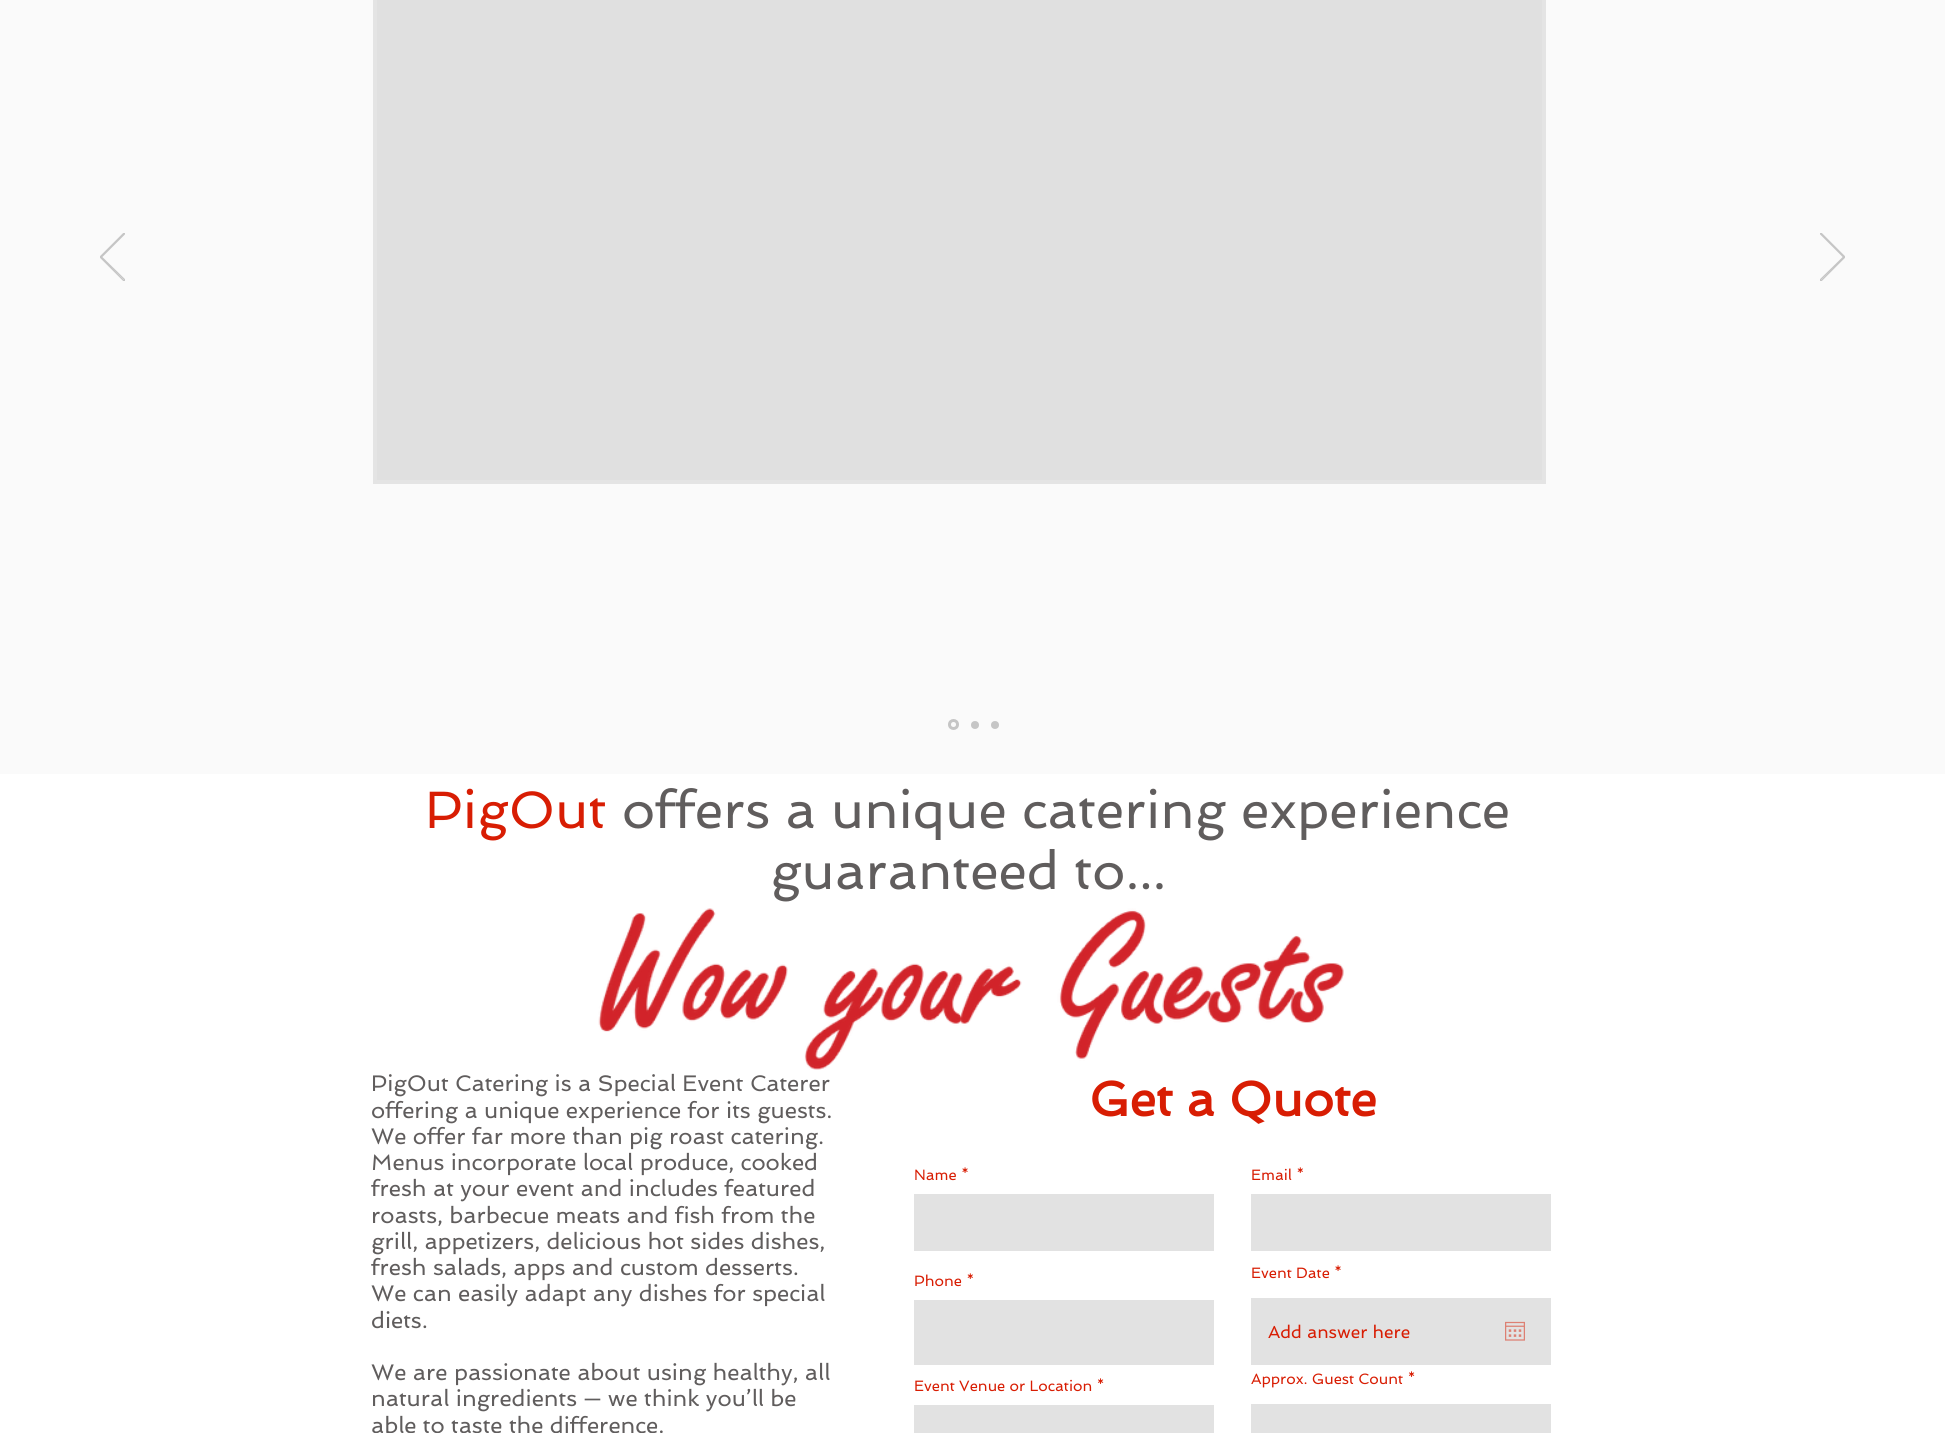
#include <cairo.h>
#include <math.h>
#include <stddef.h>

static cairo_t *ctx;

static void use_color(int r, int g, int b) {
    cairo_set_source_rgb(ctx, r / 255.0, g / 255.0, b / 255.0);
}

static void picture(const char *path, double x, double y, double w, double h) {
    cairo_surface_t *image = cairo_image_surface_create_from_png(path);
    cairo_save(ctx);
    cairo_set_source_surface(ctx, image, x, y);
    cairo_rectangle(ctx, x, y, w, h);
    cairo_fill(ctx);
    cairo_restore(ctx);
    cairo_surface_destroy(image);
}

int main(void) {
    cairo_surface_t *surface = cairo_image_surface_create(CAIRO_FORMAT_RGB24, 1945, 1433);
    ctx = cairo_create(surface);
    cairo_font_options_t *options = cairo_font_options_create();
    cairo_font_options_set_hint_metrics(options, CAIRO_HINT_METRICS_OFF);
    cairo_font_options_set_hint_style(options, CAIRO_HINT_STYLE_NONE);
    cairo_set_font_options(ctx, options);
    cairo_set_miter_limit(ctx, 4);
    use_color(255, 255, 255);
    cairo_paint(ctx);
    use_color(250, 250, 250);
    cairo_rectangle(ctx, 0, 0, 1945, 774);
    cairo_fill(ctx);
    use_color(224, 224, 224);
    cairo_rectangle(ctx, 375, -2, 1169, 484);
    cairo_fill_preserve(ctx);
    use_color(228, 228, 228);
    cairo_set_line_width(ctx, 4);
    cairo_stroke(ctx);
    cairo_save(ctx);
    cairo_rectangle(ctx, 100, 233, 25, 48);
    cairo_clip(ctx);
    cairo_new_path(ctx);
    cairo_move_to(ctx, 124, 281);
    cairo_line_to(ctx, 100, 257);
    cairo_line_to(ctx, 124, 233);
    cairo_line_to(ctx, 125, 233.5);
    cairo_line_to(ctx, 101.5, 257);
    cairo_line_to(ctx, 125, 280);
    cairo_close_path(ctx);
    use_color(197, 197, 197);
    cairo_set_line_width(ctx, 1.2);
    cairo_stroke(ctx);
    cairo_restore(ctx);
    cairo_save(ctx);
    cairo_rectangle(ctx, 1820, 233, 25, 48);
    cairo_clip(ctx);
    cairo_new_path(ctx);
    cairo_move_to(ctx, 1821, 281);
    cairo_line_to(ctx, 1845, 257);
    cairo_line_to(ctx, 1821, 233);
    cairo_line_to(ctx, 1820, 233.5);
    cairo_line_to(ctx, 1843.5, 257);
    cairo_line_to(ctx, 1820, 280);
    cairo_close_path(ctx);
    use_color(197, 197, 197);
    cairo_set_line_width(ctx, 1.2);
    cairo_stroke(ctx);
    cairo_restore(ctx);
    cairo_arc(ctx, 953.5, 724.5, 4, 0, 2 * M_PI);
    use_color(197, 197, 197);
    cairo_set_line_width(ctx, 3);
    cairo_stroke(ctx);
    cairo_arc(ctx, 975, 725, 4, 0, 2 * M_PI);
    cairo_fill(ctx);
    cairo_arc(ctx, 995, 725, 4, 0, 2 * M_PI);
    cairo_fill(ctx);
    cairo_select_font_face(ctx, "Spinnaker", CAIRO_FONT_SLANT_NORMAL, CAIRO_FONT_WEIGHT_NORMAL);
    cairo_set_font_size(ctx, 52.5);
    use_color(216, 29, 3);
    cairo_move_to(ctx, 425, 828);
    cairo_show_text(ctx, "PigOut");
    use_color(96, 93, 93);
    cairo_move_to(ctx, 622, 828);
    cairo_show_text(ctx, "offers a unique catering experience");
    cairo_move_to(ctx, 770, 889);
    cairo_show_text(ctx, "guaranteed to...");
    picture("img1.png", 598, 908, 746, 162);
    cairo_set_font_size(ctx, 22.5);
    cairo_move_to(ctx, 371, 1091);
    cairo_show_text(ctx, "PigOut Catering is a Special Event Caterer");
    cairo_move_to(ctx, 371, 1118);
    cairo_show_text(ctx, "offering a unique experience for its guests.");
    cairo_move_to(ctx, 371, 1144);
    cairo_show_text(ctx, "We offer far more than pig roast catering.");
    cairo_move_to(ctx, 371, 1170);
    cairo_show_text(ctx, "Menus incorporate local produce, cooked");
    cairo_move_to(ctx, 371, 1196);
    cairo_show_text(ctx, "fresh at your event and includes featured");
    cairo_move_to(ctx, 371, 1223);
    cairo_show_text(ctx, "roasts, barbecue meats and fish from the");
    cairo_move_to(ctx, 371, 1249);
    cairo_show_text(ctx, "grill, appetizers, delicious hot sides dishes,");
    cairo_move_to(ctx, 371, 1275);
    cairo_show_text(ctx, "fresh salads, apps and custom desserts.");
    cairo_move_to(ctx, 371, 1301);
    cairo_show_text(ctx, "We can easily adapt any dishes for special");
    cairo_move_to(ctx, 371, 1328);
    cairo_show_text(ctx, "diets.");
    cairo_move_to(ctx, 371, 1380);
    cairo_show_text(ctx, "We are passionate about using healthy, all");
    cairo_move_to(ctx, 371, 1406);
    cairo_show_text(ctx, "natural ingredients — we think you’ll be");
    cairo_move_to(ctx, 371, 1433);
    cairo_show_text(ctx, "able to taste the difference.");
    cairo_select_font_face(ctx, "Spinnaker", CAIRO_FONT_SLANT_NORMAL, CAIRO_FONT_WEIGHT_BOLD);
    cairo_set_font_size(ctx, 48.75);
    use_color(216, 29, 3);
    cairo_move_to(ctx, 1089, 1116);
    cairo_show_text(ctx, "Get a Quote");
    cairo_select_font_face(ctx, "Spinnaker", CAIRO_FONT_SLANT_NORMAL, CAIRO_FONT_WEIGHT_NORMAL);
    cairo_set_font_size(ctx, 15);
    cairo_move_to(ctx, 914, 1180);
    cairo_show_text(ctx, "Name *");
    use_color(226, 226, 226);
    cairo_rectangle(ctx, 914, 1194, 300, 57);
    cairo_fill(ctx);
    use_color(216, 29, 3);
    cairo_move_to(ctx, 1251, 1180);
    cairo_show_text(ctx, "Email *");
    use_color(226, 226, 226);
    cairo_rectangle(ctx, 1251, 1194, 300, 57);
    cairo_fill(ctx);
    use_color(216, 29, 3);
    cairo_move_to(ctx, 914, 1286);
    cairo_show_text(ctx, "Phone *");
    use_color(226, 226, 226);
    cairo_rectangle(ctx, 914, 1300, 300, 65);
    cairo_fill(ctx);
    use_color(216, 29, 3);
    cairo_move_to(ctx, 1251, 1278);
    cairo_show_text(ctx, "Event Date *");
    use_color(226, 226, 226);
    cairo_rectangle(ctx, 1251, 1298, 300, 67);
    cairo_fill(ctx);
    cairo_set_font_size(ctx, 17.5);
    use_color(216, 29, 3);
    cairo_move_to(ctx, 1268, 1338);
    cairo_show_text(ctx, "Add answer here");
    picture("img2.png", 1505, 1321, 20, 20);
    cairo_set_font_size(ctx, 15);
    cairo_move_to(ctx, 914, 1391);
    cairo_show_text(ctx, "Event Venue or Location *");
    use_color(226, 226, 226);
    cairo_rectangle(ctx, 914, 1405, 300, 28);
    cairo_fill(ctx);
    use_color(216, 29, 3);
    cairo_move_to(ctx, 1251, 1384);
    cairo_show_text(ctx, "Approx. Guest Count *");
    use_color(226, 226, 226);
    cairo_rectangle(ctx, 1251, 1404, 300, 29);
    cairo_fill(ctx);
    cairo_surface_write_to_png(surface, "result.png");
    cairo_font_options_destroy(options);
    cairo_destroy(ctx);
    cairo_surface_destroy(surface);
    return 0;
}
